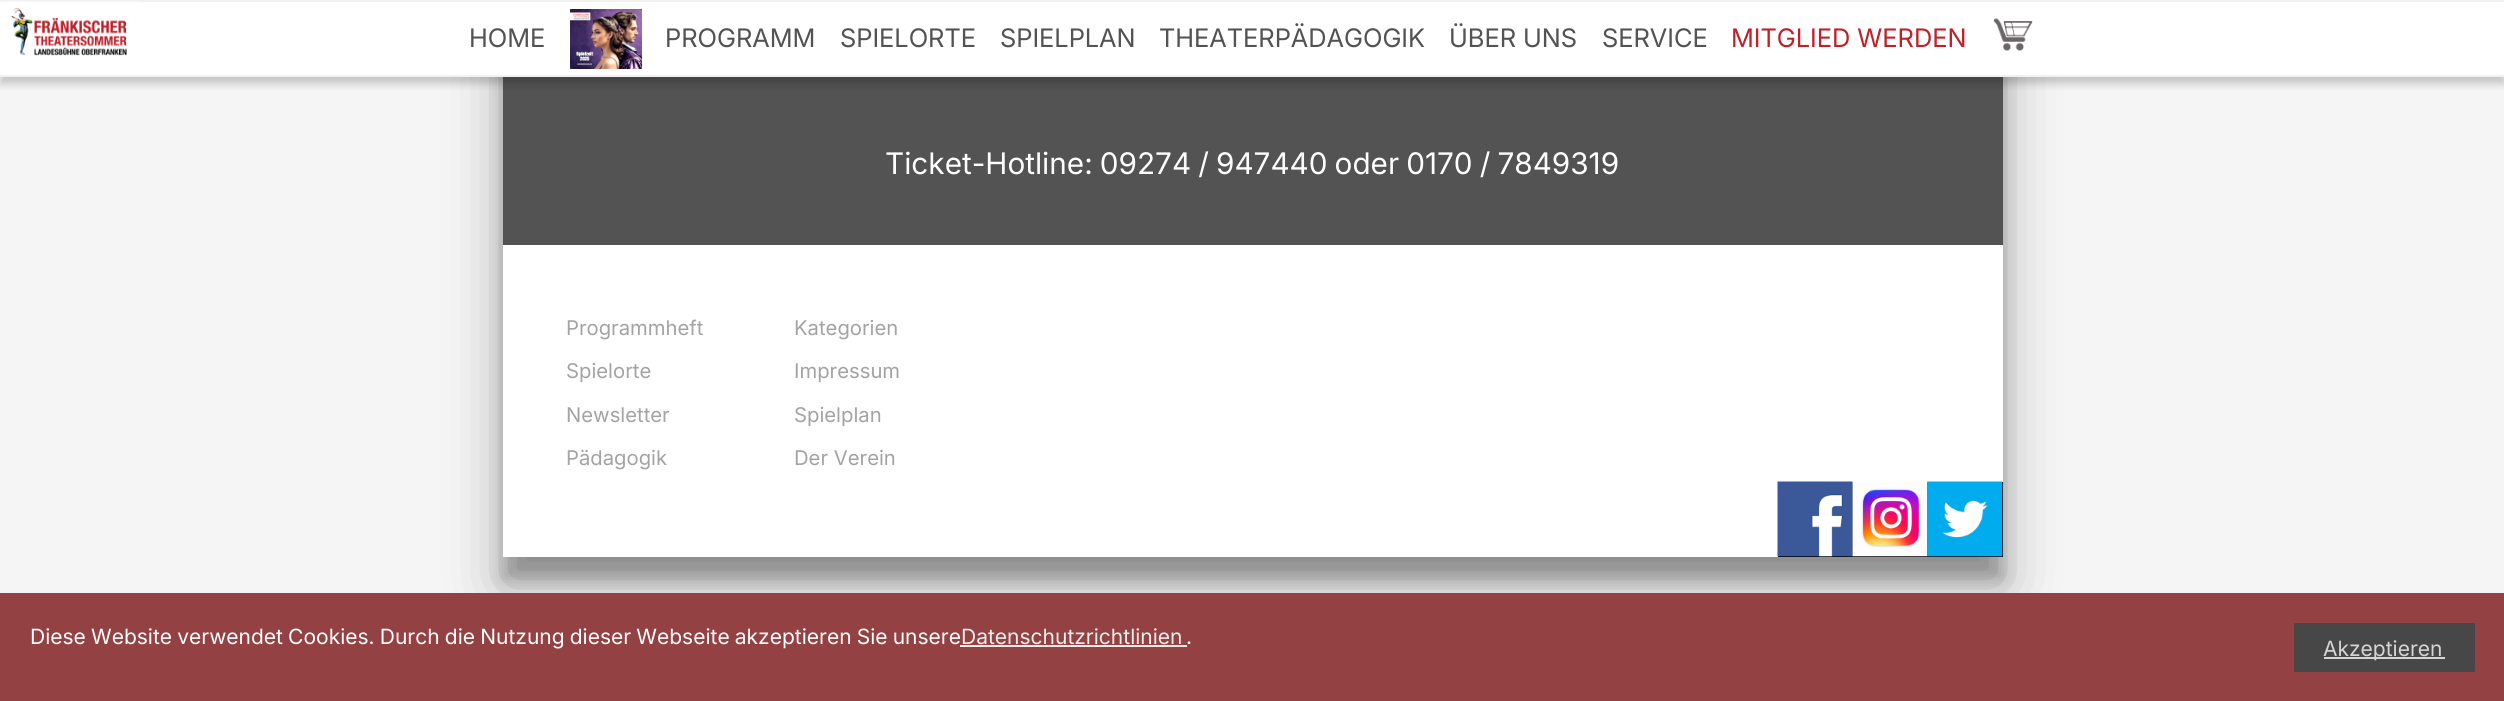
#include <cairo.h>
#include <math.h>
#include <stddef.h>

static cairo_t *ctx;

static void use_color(int r, int g, int b) {
    cairo_set_source_rgb(ctx, r / 255.0, g / 255.0, b / 255.0);
}

static void spaced_text(double x, double y, const char *s, double letter, double word) {
    cairo_move_to(ctx, x, y);
    while (*s) {
        char ch[5] = {0};
        int n = 0;
        do ch[n++] = *s++; while ((*s & 0xC0) == 0x80);
        cairo_show_text(ctx, ch);
        cairo_rel_move_to(ctx, letter + word * (*ch == ' '), 0);
    }
}

static void round_rect(double x, double y, double w, double h, double r) {
    cairo_new_sub_path(ctx);
    cairo_arc(ctx, x + w - r, y + h - r, r, 0, M_PI / 2);
    cairo_arc(ctx, x + r, y + h - r, r, M_PI / 2, M_PI);
    cairo_arc(ctx, x + r, y + r, r, M_PI, 1.5 * M_PI);
    cairo_arc(ctx, x + w - r, y + r, r, 1.5 * M_PI, 2 * M_PI);
    cairo_close_path(ctx);
}

static void shadow(double x, double y, double w, double h, double r, double blur, double alpha) {
    cairo_push_group_with_content(ctx, CAIRO_CONTENT_ALPHA);
    cairo_set_operator(ctx, CAIRO_OPERATOR_SOURCE);
    for (int i = 15; i >= -15 && fmin(w, h) + blur * i / 3 > 0; i -= 2) {
        double e = blur * i / 6;
        cairo_set_source_rgba(ctx, 0, 0, 0, alpha * erfc((i - 1) / 8.5) / 2);
        round_rect(x - e, y - e, w + 2 * e, h + 2 * e, fmax(0, fmin(r + e + blur * .6, fmin(w, h) / 2 + e)));
        cairo_fill(ctx);
    }
    cairo_pattern_t *soft = cairo_pop_group(ctx);
    cairo_mask(ctx, soft);
    cairo_pattern_destroy(soft);
}

static void picture(const char *path, double x, double y, double w, double h) {
    cairo_surface_t *image = cairo_image_surface_create_from_png(path);
    cairo_save(ctx);
    cairo_set_source_surface(ctx, image, x, y);
    cairo_rectangle(ctx, x, y, w, h);
    cairo_fill(ctx);
    cairo_restore(ctx);
    cairo_surface_destroy(image);
}

int main(void) {
    cairo_surface_t *surface = cairo_image_surface_create(CAIRO_FORMAT_RGB24, 2504, 701);
    ctx = cairo_create(surface);
    cairo_font_options_t *options = cairo_font_options_create();
    cairo_font_options_set_hint_metrics(options, CAIRO_HINT_METRICS_OFF);
    cairo_font_options_set_hint_style(options, CAIRO_HINT_STYLE_NONE);
    cairo_set_font_options(ctx, options);
    cairo_set_miter_limit(ctx, 4);
    use_color(245, 245, 245);
    cairo_paint(ctx);
    use_color(0, 0, 0);
    shadow(503, 11, 1500, 568, 0, 9, 0.22);
    shadow(503, 17, 1500, 568, 0, 28.5, 0.3);
    use_color(83, 83, 83);
    cairo_rectangle(ctx, 503, 77, 1500, 168);
    cairo_fill(ctx);
    use_color(0, 0, 0);
    shadow(0, 8, 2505, 76, 0, 4, 0.1);
    shadow(0, 8, 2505, 76, 0, 4, 0.1);
    use_color(255, 255, 255);
    cairo_rectangle(ctx, 0, 2, 2504, 73);
    cairo_fill(ctx);
    use_color(241, 241, 241);
    cairo_rectangle(ctx, 0, 0, 2504, 2);
    cairo_fill(ctx);
    cairo_rectangle(ctx, 0, 75, 2504, 2);
    cairo_fill(ctx);
    picture("img1.png", 0, 1, 138, 55);
    cairo_select_font_face(ctx, "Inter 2", CAIRO_FONT_SLANT_NORMAL, CAIRO_FONT_WEIGHT_NORMAL);
    cairo_set_font_size(ctx, 25.5);
    use_color(83, 83, 83);
    cairo_move_to(ctx, 469, 47);
    cairo_show_text(ctx, "HOME");
    picture("img2.png", 570, 9, 72, 60);
    cairo_move_to(ctx, 665, 47);
    cairo_show_text(ctx, "PROGRAMM");
    cairo_move_to(ctx, 840, 47);
    cairo_show_text(ctx, "SPIELORTE");
    cairo_move_to(ctx, 1000, 47);
    cairo_show_text(ctx, "SPIELPLAN");
    cairo_move_to(ctx, 1159, 47);
    cairo_show_text(ctx, "THEATERPÄDAGOGIK");
    cairo_move_to(ctx, 1449, 47);
    cairo_show_text(ctx, "ÜBER UNS");
    cairo_move_to(ctx, 1602, 47);
    cairo_show_text(ctx, "SERVICE");
    use_color(189, 33, 42);
    cairo_move_to(ctx, 1731, 47);
    cairo_show_text(ctx, "MITGLIED WERDEN");
    picture("img3.png", 1993, 18, 40, 33);
    use_color(255, 255, 255);
    cairo_rectangle(ctx, 503, 245, 1500, 312);
    cairo_fill(ctx);
    cairo_select_font_face(ctx, "Inter", CAIRO_FONT_SLANT_NORMAL, CAIRO_FONT_WEIGHT_NORMAL);
    cairo_set_font_size(ctx, 29.7);
    spaced_text(885, 174, "Ticket-Hotline: 09274 / 947440 oder 0170 / 7849319", 0, -1.25);
    cairo_set_font_size(ctx, 20.25);
    use_color(163, 163, 163);
    cairo_move_to(ctx, 566, 335);
    cairo_show_text(ctx, "Programmheft");
    cairo_move_to(ctx, 794, 335);
    cairo_show_text(ctx, "Kategorien");
    cairo_move_to(ctx, 566, 378);
    cairo_show_text(ctx, "Spielorte");
    cairo_move_to(ctx, 794, 378);
    cairo_show_text(ctx, "Impressum");
    cairo_move_to(ctx, 566, 422);
    cairo_show_text(ctx, "Newsletter");
    cairo_move_to(ctx, 794, 422);
    cairo_show_text(ctx, "Spielplan");
    cairo_move_to(ctx, 566, 465);
    cairo_show_text(ctx, "Pädagogik");
    cairo_move_to(ctx, 794, 465);
    cairo_show_text(ctx, "Der Verein");
    use_color(0, 0, 0);
    cairo_rectangle(ctx, 1778, 482, 225, 75);
    cairo_fill(ctx);
    picture("img4.png", 1777, 481, 76, 76);
    picture("img5.png", 1852, 481, 76, 76);
    picture("img6.png", 1927, 481, 76, 76);
    use_color(147, 65, 66);
    cairo_rectangle(ctx, 0, 593, 2504, 108);
    cairo_fill(ctx);
    cairo_set_font_size(ctx, 21);
    use_color(255, 255, 255);
    spaced_text(30, 644, "Diese Website verwendet Cookies. Durch die Nutzung dieser Webseite akzeptieren Sie unsere", 0, -0.75);
    use_color(237, 237, 237);
    cairo_move_to(ctx, 961, 644);
    cairo_show_text(ctx, "Datenschutzrichtlinien");
    cairo_rectangle(ctx, 960, 645, 227, 2);
    cairo_fill(ctx);
    use_color(255, 255, 255);
    cairo_move_to(ctx, 1186, 644);
    cairo_show_text(ctx, ".");
    use_color(71, 71, 71);
    round_rect(2294, 623, 181, 49, 1.5);
    cairo_fill(ctx);
    use_color(213, 213, 213);
    cairo_rectangle(ctx, 2324, 657, 121, 2);
    cairo_fill(ctx);
    cairo_move_to(ctx, 2323, 656);
    cairo_show_text(ctx, "Akzeptieren");
    cairo_surface_write_to_png(surface, "result.png");
    cairo_font_options_destroy(options);
    cairo_destroy(ctx);
    cairo_surface_destroy(surface);
    return 0;
}
